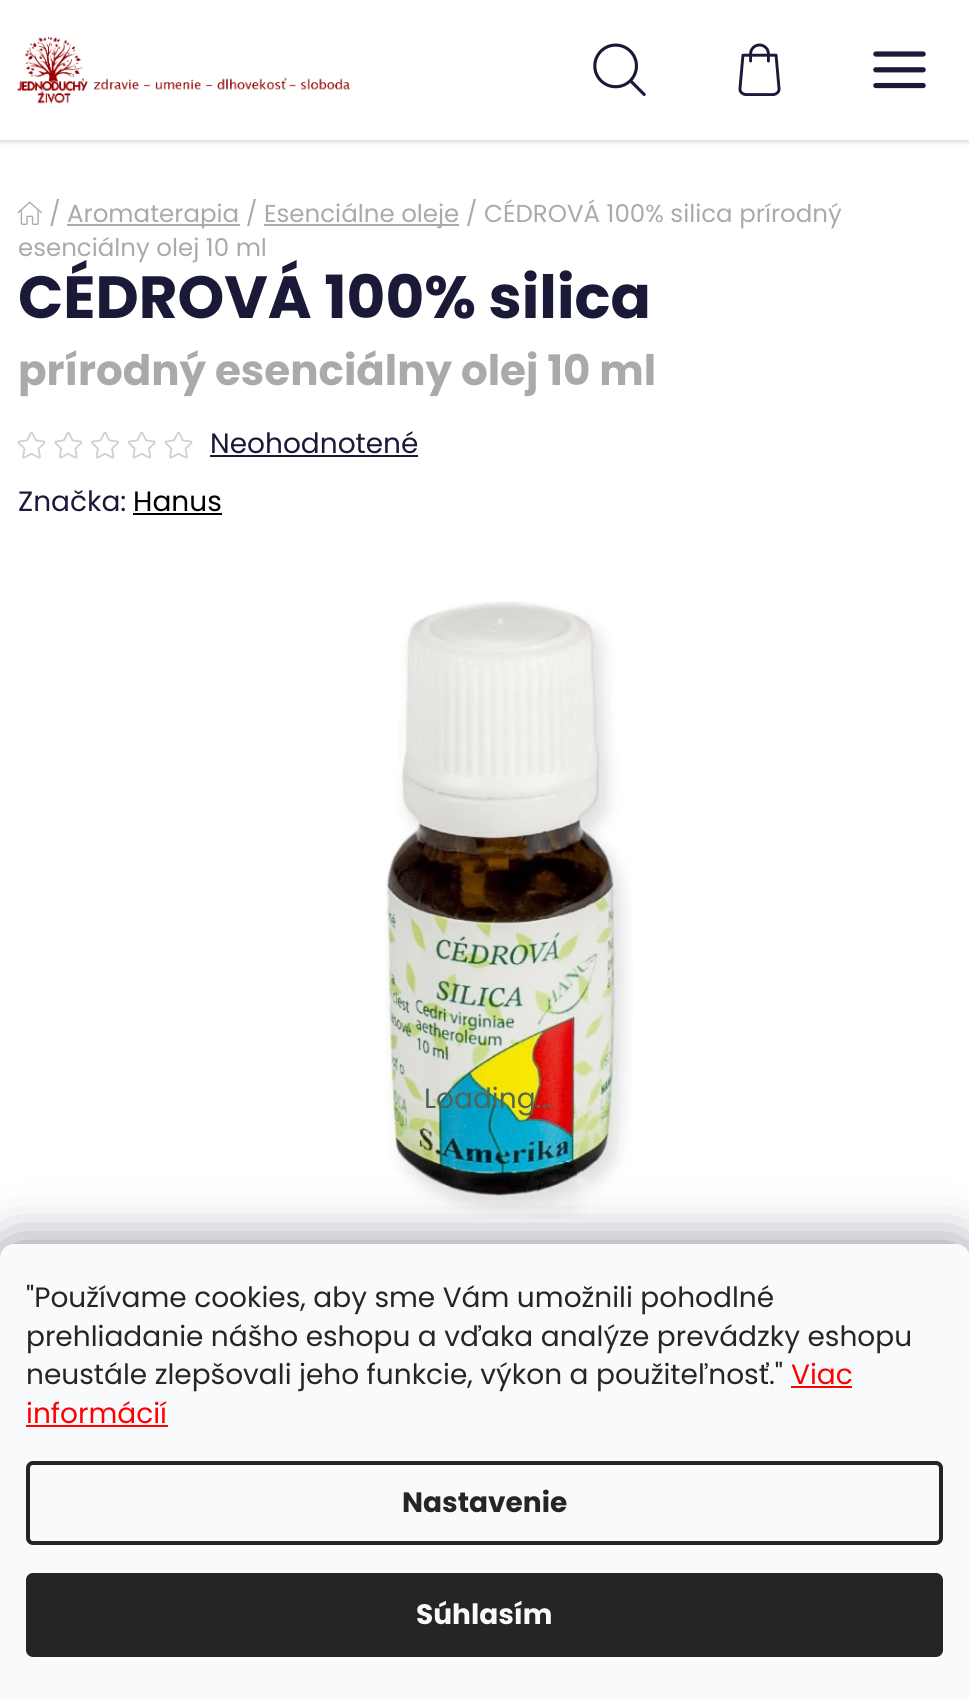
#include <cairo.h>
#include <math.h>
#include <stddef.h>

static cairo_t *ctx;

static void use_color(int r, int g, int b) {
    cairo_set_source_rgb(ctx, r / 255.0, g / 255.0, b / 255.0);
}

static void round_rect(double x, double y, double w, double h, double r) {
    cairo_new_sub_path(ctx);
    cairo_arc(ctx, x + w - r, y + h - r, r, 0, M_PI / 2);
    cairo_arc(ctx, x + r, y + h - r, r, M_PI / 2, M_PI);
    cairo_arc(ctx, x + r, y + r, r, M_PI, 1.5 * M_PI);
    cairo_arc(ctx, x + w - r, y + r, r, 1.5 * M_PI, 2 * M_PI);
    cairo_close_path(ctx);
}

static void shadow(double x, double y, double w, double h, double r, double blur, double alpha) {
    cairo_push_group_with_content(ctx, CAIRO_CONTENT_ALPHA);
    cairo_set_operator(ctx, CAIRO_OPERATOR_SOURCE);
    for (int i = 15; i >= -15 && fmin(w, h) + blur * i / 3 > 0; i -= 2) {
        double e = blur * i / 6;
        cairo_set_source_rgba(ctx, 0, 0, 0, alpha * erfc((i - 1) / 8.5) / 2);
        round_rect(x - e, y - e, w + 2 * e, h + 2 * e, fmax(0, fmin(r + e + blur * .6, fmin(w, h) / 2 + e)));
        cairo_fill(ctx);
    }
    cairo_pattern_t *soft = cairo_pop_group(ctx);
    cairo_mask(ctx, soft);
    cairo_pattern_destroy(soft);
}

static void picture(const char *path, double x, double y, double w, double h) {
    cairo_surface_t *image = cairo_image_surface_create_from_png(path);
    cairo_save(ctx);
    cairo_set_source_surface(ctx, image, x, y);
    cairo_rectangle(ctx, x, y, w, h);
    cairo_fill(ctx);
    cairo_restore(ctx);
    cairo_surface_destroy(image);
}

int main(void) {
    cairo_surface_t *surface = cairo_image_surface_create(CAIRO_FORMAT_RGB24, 969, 1700);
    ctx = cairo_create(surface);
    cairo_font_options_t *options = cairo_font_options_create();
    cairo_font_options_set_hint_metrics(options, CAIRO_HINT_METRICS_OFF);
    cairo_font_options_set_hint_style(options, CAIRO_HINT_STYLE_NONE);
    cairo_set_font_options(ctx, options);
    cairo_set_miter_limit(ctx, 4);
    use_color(255, 255, 255);
    cairo_paint(ctx);
    use_color(0, 0, 0);
    shadow(0, 2, 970, 140, 0, 2, 0.16);
    use_color(255, 255, 255);
    cairo_rectangle(ctx, 0, 0, 969, 140);
    cairo_fill(ctx);
    picture("img1.png", 17, 36, 333, 68);
    picture("img2.png", 593, 43, 53, 53);
    picture("img3.png", 738, 43, 43, 53);
    picture("img4.png", 873, 51, 53, 38);
    picture("img5.png", 17, 201, 25, 24);
    cairo_select_font_face(ctx, "Poppins", CAIRO_FONT_SLANT_NORMAL, CAIRO_FONT_WEIGHT_NORMAL);
    cairo_set_font_size(ctx, 24.5);
    use_color(170, 170, 170);
    cairo_move_to(ctx, 49, 222);
    cairo_show_text(ctx, "/");
    cairo_rectangle(ctx, 67, 224, 173, 2);
    cairo_fill(ctx);
    cairo_move_to(ctx, 67, 222);
    cairo_show_text(ctx, "Aromaterapia /");
    cairo_rectangle(ctx, 264, 224, 195, 2);
    cairo_fill(ctx);
    cairo_move_to(ctx, 264, 222);
    cairo_show_text(ctx, "Esenciálne oleje / CÉDROVÁ 100% silica prírodný");
    cairo_move_to(ctx, 18, 256);
    cairo_show_text(ctx, "esenciálny olej 10 ml");
    cairo_select_font_face(ctx, "Poppins", CAIRO_FONT_SLANT_NORMAL, CAIRO_FONT_WEIGHT_BOLD);
    cairo_set_font_size(ctx, 59.5);
    use_color(26, 25, 55);
    cairo_move_to(ctx, 18, 318);
    cairo_show_text(ctx, "CÉDROVÁ 100% silica");
    cairo_set_font_size(ctx, 42);
    use_color(170, 170, 170);
    cairo_move_to(ctx, 18, 385);
    cairo_show_text(ctx, "prírodný esenciálny olej 10 ml");
    picture("img6.png", 17, 431, 29, 28);
    picture("img7.png", 54, 431, 29, 28);
    picture("img8.png", 91, 431, 28, 28);
    picture("img9.png", 127, 431, 29, 28);
    picture("img6.png", 164, 431, 29, 28);
    cairo_select_font_face(ctx, "Poppins", CAIRO_FONT_SLANT_NORMAL, CAIRO_FONT_WEIGHT_NORMAL);
    cairo_set_font_size(ctx, 28);
    use_color(26, 25, 55);
    cairo_move_to(ctx, 210, 453);
    cairo_show_text(ctx, "Neohodnotené");
    cairo_rectangle(ctx, 210, 455, 208, 2);
    cairo_fill(ctx);
    cairo_move_to(ctx, 18, 511);
    cairo_show_text(ctx, "Značka:");
    use_color(0, 0, 0);
    cairo_move_to(ctx, 133, 511);
    cairo_show_text(ctx, "Hanus");
    cairo_rectangle(ctx, 133, 513, 89, 2);
    cairo_fill(ctx);
    picture("img10.png", 385, 601, 248, 618);
    use_color(77, 102, 87);
    cairo_move_to(ctx, 424, 1108);
    cairo_show_text(ctx, "Loading...");
    use_color(27, 25, 57);
    shadow(0, 1244, 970, 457, 14, 26, 0.5);
    use_color(248, 250, 251);
    cairo_new_path(ctx);
    cairo_move_to(ctx, 14, 1244);
    cairo_line_to(ctx, 956, 1244);
    cairo_curve_to(ctx, 963.5, 1244, 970, 1250.5, 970, 1258);
    cairo_line_to(ctx, 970, 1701);
    cairo_line_to(ctx, 0, 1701);
    cairo_line_to(ctx, 0, 1258);
    cairo_curve_to(ctx, 0, 1250.5, 6.5, 1244, 14, 1244);
    cairo_close_path(ctx);
    cairo_fill(ctx);
    use_color(37, 37, 37);
    cairo_move_to(ctx, 26, 1307);
    cairo_show_text(ctx, "\"Používame cookies, aby sme Vám umožnili pohodlné");
    cairo_move_to(ctx, 26, 1346);
    cairo_show_text(ctx, "prehliadanie nášho eshopu a vďaka analýze prevádzky eshopu");
    cairo_move_to(ctx, 26, 1384);
    cairo_show_text(ctx, "neustále zlepšovali jeho funkcie, výkon a použiteľnosť.\"");
    use_color(255, 0, 0);
    cairo_move_to(ctx, 791, 1384);
    cairo_show_text(ctx, "Viac");
    cairo_rectangle(ctx, 791, 1386, 61, 2);
    cairo_fill(ctx);
    cairo_move_to(ctx, 26, 1423);
    cairo_show_text(ctx, "informácií");
    cairo_rectangle(ctx, 26, 1425, 142, 2);
    cairo_fill(ctx);
    round_rect(28, 1463, 913, 80, 5);
    use_color(37, 37, 37);
    cairo_set_line_width(ctx, 4);
    cairo_stroke(ctx);
    cairo_select_font_face(ctx, "Poppins", CAIRO_FONT_SLANT_NORMAL, CAIRO_FONT_WEIGHT_BOLD);
    cairo_move_to(ctx, 402, 1512);
    cairo_show_text(ctx, "Nastavenie");
    round_rect(26, 1573, 917, 84, 7);
    cairo_fill(ctx);
    use_color(248, 250, 251);
    cairo_move_to(ctx, 416, 1624);
    cairo_show_text(ctx, "Súhlasím");
    cairo_surface_write_to_png(surface, "result.png");
    cairo_font_options_destroy(options);
    cairo_destroy(ctx);
    cairo_surface_destroy(surface);
    return 0;
}
